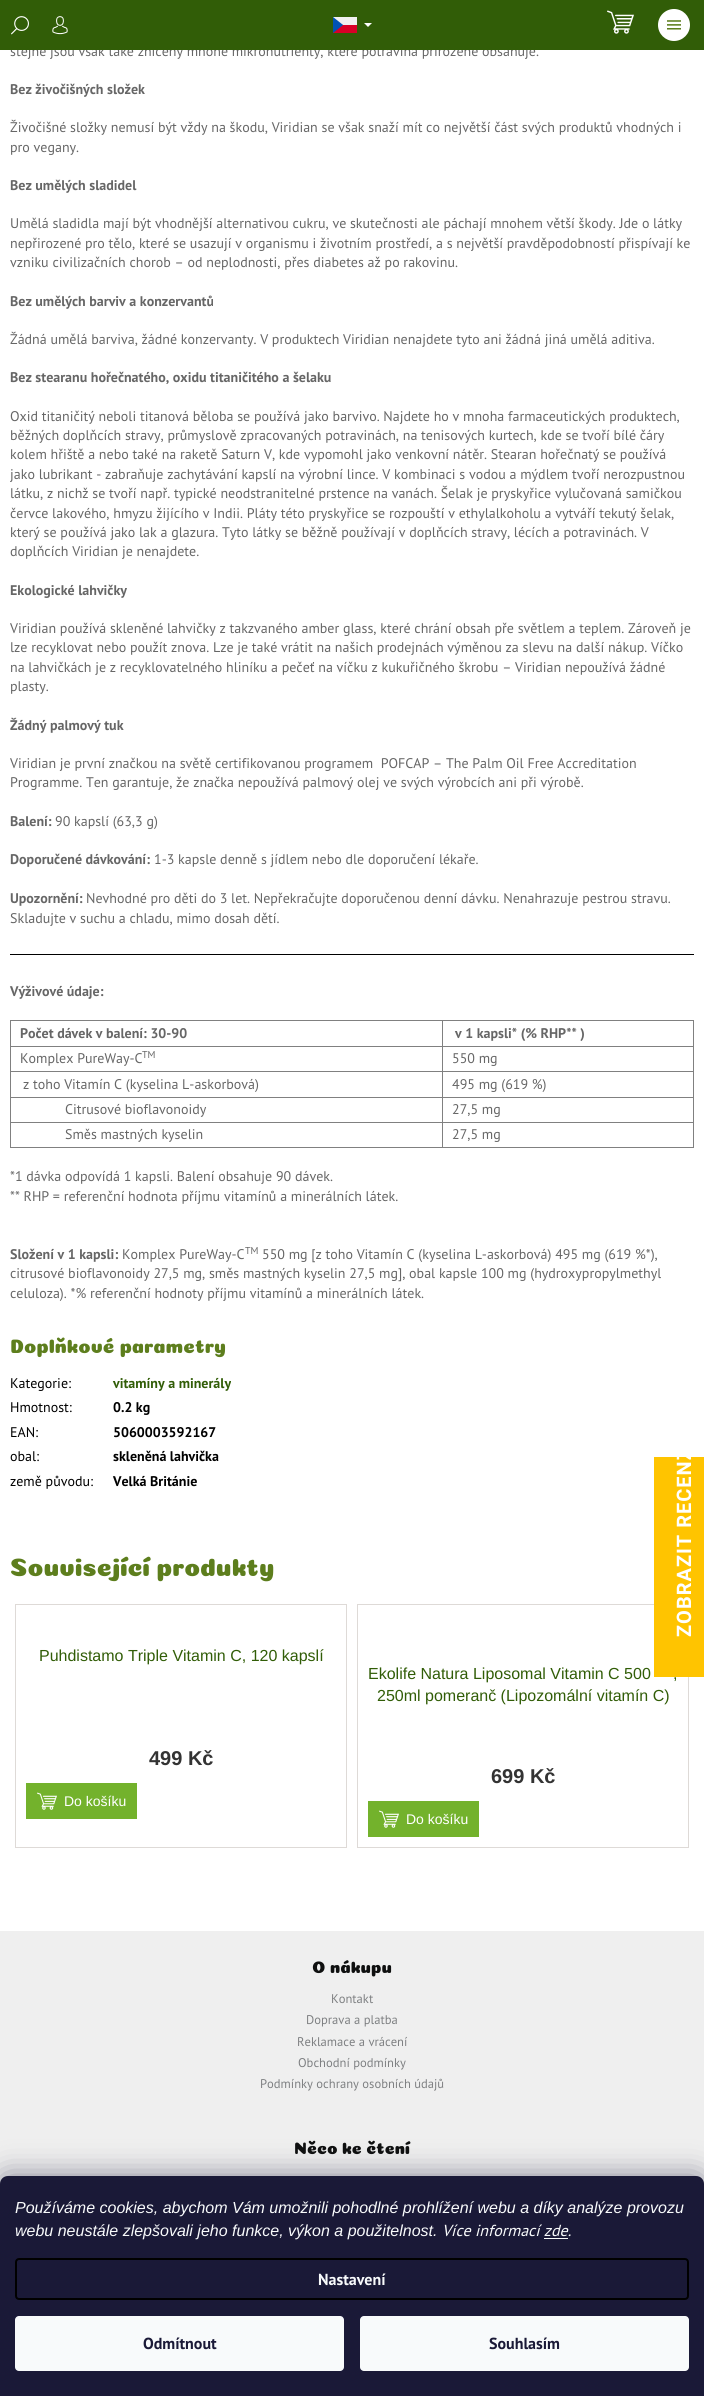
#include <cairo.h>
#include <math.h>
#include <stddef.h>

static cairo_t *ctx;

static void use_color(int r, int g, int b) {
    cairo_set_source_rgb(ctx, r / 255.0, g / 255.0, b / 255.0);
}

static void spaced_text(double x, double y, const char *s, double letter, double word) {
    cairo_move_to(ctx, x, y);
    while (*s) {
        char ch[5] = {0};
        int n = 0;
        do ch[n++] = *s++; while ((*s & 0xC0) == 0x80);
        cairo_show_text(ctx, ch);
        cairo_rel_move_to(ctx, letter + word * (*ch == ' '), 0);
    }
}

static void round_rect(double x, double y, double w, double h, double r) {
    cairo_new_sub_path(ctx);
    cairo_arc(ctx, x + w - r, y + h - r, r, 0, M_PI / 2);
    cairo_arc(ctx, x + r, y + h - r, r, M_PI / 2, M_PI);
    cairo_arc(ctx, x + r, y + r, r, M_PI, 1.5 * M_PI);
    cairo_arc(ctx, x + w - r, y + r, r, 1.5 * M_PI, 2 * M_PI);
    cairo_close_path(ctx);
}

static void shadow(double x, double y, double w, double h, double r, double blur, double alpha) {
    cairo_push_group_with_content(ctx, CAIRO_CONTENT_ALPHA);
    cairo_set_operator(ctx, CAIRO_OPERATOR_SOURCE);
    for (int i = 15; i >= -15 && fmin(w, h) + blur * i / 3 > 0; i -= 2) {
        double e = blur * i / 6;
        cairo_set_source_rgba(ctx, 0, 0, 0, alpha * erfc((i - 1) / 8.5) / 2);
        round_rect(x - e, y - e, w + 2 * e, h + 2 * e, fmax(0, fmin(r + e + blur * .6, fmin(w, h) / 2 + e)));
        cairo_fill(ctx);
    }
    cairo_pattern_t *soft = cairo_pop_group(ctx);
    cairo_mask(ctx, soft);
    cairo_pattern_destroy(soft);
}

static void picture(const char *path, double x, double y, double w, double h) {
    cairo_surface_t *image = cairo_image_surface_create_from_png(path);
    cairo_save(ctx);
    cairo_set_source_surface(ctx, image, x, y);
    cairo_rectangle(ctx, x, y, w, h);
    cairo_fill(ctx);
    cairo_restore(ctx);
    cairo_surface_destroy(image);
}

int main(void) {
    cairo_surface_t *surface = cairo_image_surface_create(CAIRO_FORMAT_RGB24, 704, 2396);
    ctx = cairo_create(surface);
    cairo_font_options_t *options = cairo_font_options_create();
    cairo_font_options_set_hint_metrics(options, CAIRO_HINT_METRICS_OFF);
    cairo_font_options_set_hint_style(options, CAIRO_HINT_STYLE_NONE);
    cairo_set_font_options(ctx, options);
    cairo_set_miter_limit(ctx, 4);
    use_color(255, 255, 255);
    cairo_paint(ctx);
    cairo_select_font_face(ctx, "PT Sans", CAIRO_FONT_SLANT_NORMAL, CAIRO_FONT_WEIGHT_NORMAL);
    cairo_set_font_size(ctx, 14);
    use_color(102, 102, 102);
    cairo_move_to(ctx, 10, 56);
    cairo_show_text(ctx, "stejně jsou však také zničeny mnohé mikronutrienty, které potravina přirozeně obsahuje.");
    use_color(49, 93, 7);
    cairo_rectangle(ctx, 0, 0, 704, 50);
    cairo_fill(ctx);
    picture("img1.png", 11, 16, 18, 19);
    picture("img2.png", 52, 16, 16, 19);
    use_color(255, 255, 255);
    cairo_arc(ctx, 674, 25, 16, 0, 2 * M_PI);
    cairo_fill(ctx);
    picture("img3.png", 667, 20, 14, 10);
    picture("img4.png", 333, 17, 24, 16);
    cairo_new_path(ctx);
    cairo_move_to(ctx, 364, 23);
    cairo_line_to(ctx, 372, 23);
    cairo_line_to(ctx, 368, 27);
    cairo_close_path(ctx);
    cairo_fill(ctx);
    picture("img5.png", 607, 10, 27, 24);
    cairo_select_font_face(ctx, "PT Sans", CAIRO_FONT_SLANT_NORMAL, CAIRO_FONT_WEIGHT_BOLD);
    use_color(102, 102, 102);
    cairo_move_to(ctx, 10, 94);
    cairo_show_text(ctx, "Bez živočišných složek");
    cairo_select_font_face(ctx, "PT Sans", CAIRO_FONT_SLANT_NORMAL, CAIRO_FONT_WEIGHT_NORMAL);
    cairo_move_to(ctx, 10, 132);
    cairo_show_text(ctx, "Živočišné složky nemusí být vždy na škodu, Viridian se však snaží mít co největší část svých produktů vhodných i");
    cairo_move_to(ctx, 10, 152);
    cairo_show_text(ctx, "pro vegany.");
    cairo_select_font_face(ctx, "PT Sans", CAIRO_FONT_SLANT_NORMAL, CAIRO_FONT_WEIGHT_BOLD);
    cairo_move_to(ctx, 10, 190);
    cairo_show_text(ctx, "Bez umělých sladidel");
    cairo_select_font_face(ctx, "PT Sans", CAIRO_FONT_SLANT_NORMAL, CAIRO_FONT_WEIGHT_NORMAL);
    cairo_move_to(ctx, 10, 228);
    cairo_show_text(ctx, "Umělá sladidla mají být vhodnější alternativou cukru, ve skutečnosti ale páchají mnohem větší škody. Jde o látky");
    cairo_move_to(ctx, 10, 248);
    cairo_show_text(ctx, "nepřirozené pro tělo, které se usazují v organismu i životním prostředí, a s největší pravděpodobností přispívají ke");
    cairo_move_to(ctx, 10, 267);
    cairo_show_text(ctx, "vzniku civilizačních chorob – od neplodnosti, přes diabetes až po rakovinu.");
    cairo_select_font_face(ctx, "PT Sans", CAIRO_FONT_SLANT_NORMAL, CAIRO_FONT_WEIGHT_BOLD);
    cairo_move_to(ctx, 10, 306);
    cairo_show_text(ctx, "Bez umělých barviv a konzervantů");
    cairo_select_font_face(ctx, "PT Sans", CAIRO_FONT_SLANT_NORMAL, CAIRO_FONT_WEIGHT_NORMAL);
    cairo_move_to(ctx, 10, 344);
    cairo_show_text(ctx, "Žádná umělá barviva, žádné konzervanty. V produktech Viridian nenajdete tyto ani žádná jiná umělá aditiva.");
    cairo_select_font_face(ctx, "PT Sans", CAIRO_FONT_SLANT_NORMAL, CAIRO_FONT_WEIGHT_BOLD);
    cairo_move_to(ctx, 10, 382);
    cairo_show_text(ctx, "Bez stearanu hořečnatého, oxidu titaničitého a šelaku");
    cairo_select_font_face(ctx, "PT Sans", CAIRO_FONT_SLANT_NORMAL, CAIRO_FONT_WEIGHT_NORMAL);
    cairo_move_to(ctx, 10, 421);
    cairo_show_text(ctx, "Oxid titaničitý neboli titanová běloba se používá jako barvivo. Najdete ho v mnoha farmaceutických produktech,");
    cairo_move_to(ctx, 10, 440);
    cairo_show_text(ctx, "běžných doplňcích stravy, průmyslově zpracovaných potravinách, na tenisových kurtech, kde se tvoří bílé čáry");
    cairo_move_to(ctx, 10, 459);
    cairo_show_text(ctx, "kolem hřiště a nebo také na raketě Saturn V, kde vypomohl jako venkovní nátěr. Stearan hořečnatý se používá");
    cairo_move_to(ctx, 10, 479);
    cairo_show_text(ctx, "jako lubrikant - zabraňuje zachytávání kapslí na výrobní lince. V kombinaci s vodou a mýdlem tvoří nerozpustnou");
    cairo_move_to(ctx, 10, 498);
    cairo_show_text(ctx, "látku, z nichž se tvoří např. typické neodstranitelné prstence na vanách. Šelak je pryskyřice vylučovaná samičkou");
    cairo_move_to(ctx, 10, 518);
    cairo_show_text(ctx, "červce lakového, hmyzu žijícího v Indii. Pláty této pryskyřice se rozpouští v ethylalkoholu a vytváří tekutý šelak,");
    cairo_move_to(ctx, 10, 537);
    cairo_show_text(ctx, "který se používá jako lak a glazura. Tyto látky se běžně používají v doplňcích stravy, lécích a potravinách. V");
    cairo_move_to(ctx, 10, 556);
    cairo_show_text(ctx, "doplňcích Viridian je nenajdete.");
    cairo_select_font_face(ctx, "PT Sans", CAIRO_FONT_SLANT_NORMAL, CAIRO_FONT_WEIGHT_BOLD);
    cairo_move_to(ctx, 10, 595);
    cairo_show_text(ctx, "Ekologické lahvičky");
    cairo_select_font_face(ctx, "PT Sans", CAIRO_FONT_SLANT_NORMAL, CAIRO_FONT_WEIGHT_NORMAL);
    cairo_move_to(ctx, 10, 633);
    cairo_show_text(ctx, "Viridian používá skleněné lahvičky z takzvaného amber glass, které chrání obsah pře světlem a teplem. Zároveň je");
    cairo_move_to(ctx, 10, 652);
    cairo_show_text(ctx, "lze recyklovat nebo použít znova. Lze je také vrátit na našich prodejnách výměnou za slevu na další nákup. Víčko");
    cairo_move_to(ctx, 10, 672);
    cairo_show_text(ctx, "na lahvičkách je z recyklovatelného hliníku a pečeť na víčku z kukuřičného škrobu – Viridian nepoužívá žádné");
    cairo_move_to(ctx, 10, 691);
    cairo_show_text(ctx, "plasty.");
    cairo_select_font_face(ctx, "PT Sans", CAIRO_FONT_SLANT_NORMAL, CAIRO_FONT_WEIGHT_BOLD);
    cairo_move_to(ctx, 10, 730);
    cairo_show_text(ctx, "Žádný palmový tuk");
    cairo_select_font_face(ctx, "PT Sans", CAIRO_FONT_SLANT_NORMAL, CAIRO_FONT_WEIGHT_NORMAL);
    cairo_move_to(ctx, 10, 768);
    cairo_show_text(ctx, "Viridian je první značkou na světě certifikovanou programem  POFCAP – The Palm Oil Free Accreditation");
    cairo_move_to(ctx, 10, 787);
    cairo_show_text(ctx, "Programme. Ten garantuje, že značka nepoužívá palmový olej ve svých výrobcích ani při výrobě.");
    cairo_select_font_face(ctx, "PT Sans", CAIRO_FONT_SLANT_NORMAL, CAIRO_FONT_WEIGHT_BOLD);
    cairo_move_to(ctx, 10, 826);
    cairo_show_text(ctx, "Balení:");
    cairo_select_font_face(ctx, "PT Sans", CAIRO_FONT_SLANT_NORMAL, CAIRO_FONT_WEIGHT_NORMAL);
    cairo_move_to(ctx, 55, 826);
    cairo_show_text(ctx, "90 kapslí (63,3 g)");
    cairo_select_font_face(ctx, "PT Sans", CAIRO_FONT_SLANT_NORMAL, CAIRO_FONT_WEIGHT_BOLD);
    cairo_move_to(ctx, 10, 864);
    cairo_show_text(ctx, "Doporučené dávkování:");
    cairo_select_font_face(ctx, "PT Sans", CAIRO_FONT_SLANT_NORMAL, CAIRO_FONT_WEIGHT_NORMAL);
    cairo_move_to(ctx, 154, 864);
    cairo_show_text(ctx, "1-3 kapsle denně s jídlem nebo dle doporučení lékaře.");
    cairo_select_font_face(ctx, "PT Sans", CAIRO_FONT_SLANT_NORMAL, CAIRO_FONT_WEIGHT_BOLD);
    cairo_move_to(ctx, 10, 903);
    cairo_show_text(ctx, "Upozornění:");
    cairo_select_font_face(ctx, "PT Sans", CAIRO_FONT_SLANT_NORMAL, CAIRO_FONT_WEIGHT_NORMAL);
    cairo_move_to(ctx, 86, 903);
    cairo_show_text(ctx, "Nevhodné pro děti do 3 let. Nepřekračujte doporučenou denní dávku. Nenahrazuje pestrou stravu.");
    cairo_move_to(ctx, 10, 923);
    cairo_show_text(ctx, "Skladujte v suchu a chladu, mimo dosah dětí.");
    use_color(0, 0, 0);
    cairo_rectangle(ctx, 10, 954, 684, 1);
    cairo_fill(ctx);
    cairo_select_font_face(ctx, "PT Sans", CAIRO_FONT_SLANT_NORMAL, CAIRO_FONT_WEIGHT_BOLD);
    use_color(102, 102, 102);
    cairo_move_to(ctx, 10, 996);
    cairo_show_text(ctx, "Výživové údaje:");
    use_color(128, 128, 128);
    cairo_rectangle(ctx, 10, 1020, 684, 1);
    cairo_fill(ctx);
    cairo_rectangle(ctx, 693, 1020, 1, 128);
    cairo_fill(ctx);
    cairo_rectangle(ctx, 10, 1147, 684, 1);
    cairo_fill(ctx);
    cairo_rectangle(ctx, 10, 1020, 1, 128);
    cairo_fill(ctx);
    use_color(102, 102, 102);
    cairo_move_to(ctx, 20, 1038);
    cairo_show_text(ctx, "Počet dávek v balení: 30-90");
    use_color(128, 128, 128);
    cairo_rectangle(ctx, 442, 1046, 252, 1);
    cairo_fill(ctx);
    cairo_rectangle(ctx, 442, 1071, 252, 1);
    cairo_fill(ctx);
    cairo_rectangle(ctx, 442, 1097, 252, 1);
    cairo_fill(ctx);
    cairo_rectangle(ctx, 442, 1122, 252, 1);
    cairo_fill(ctx);
    cairo_rectangle(ctx, 442, 1122, 1, 26);
    cairo_fill(ctx);
    cairo_rectangle(ctx, 10, 1122, 433, 1);
    cairo_fill(ctx);
    cairo_rectangle(ctx, 442, 1097, 1, 26);
    cairo_fill(ctx);
    cairo_rectangle(ctx, 10, 1097, 433, 1);
    cairo_fill(ctx);
    cairo_rectangle(ctx, 442, 1071, 1, 27);
    cairo_fill(ctx);
    cairo_rectangle(ctx, 10, 1071, 433, 1);
    cairo_fill(ctx);
    cairo_rectangle(ctx, 442, 1046, 1, 26);
    cairo_fill(ctx);
    cairo_rectangle(ctx, 10, 1046, 433, 1);
    cairo_fill(ctx);
    cairo_rectangle(ctx, 442, 1020, 1, 27);
    cairo_fill(ctx);
    use_color(102, 102, 102);
    cairo_move_to(ctx, 455, 1038);
    cairo_show_text(ctx, "v 1 kapsli* (% RHP** )");
    cairo_select_font_face(ctx, "PT Sans", CAIRO_FONT_SLANT_NORMAL, CAIRO_FONT_WEIGHT_NORMAL);
    cairo_move_to(ctx, 20, 1063);
    cairo_show_text(ctx, "Komplex PureWay-C");
    cairo_set_font_size(ctx, 10);
    cairo_move_to(ctx, 142, 1058);
    cairo_show_text(ctx, "TM");
    cairo_set_font_size(ctx, 14);
    cairo_move_to(ctx, 452, 1063);
    cairo_show_text(ctx, "550 mg");
    cairo_move_to(ctx, 23, 1089);
    cairo_show_text(ctx, "z toho Vitamín C (kyselina L-askorbová)");
    cairo_move_to(ctx, 452, 1089);
    cairo_show_text(ctx, "495 mg (619 %)");
    cairo_move_to(ctx, 65, 1114);
    cairo_show_text(ctx, "Citrusové bioflavonoidy");
    cairo_move_to(ctx, 452, 1114);
    cairo_show_text(ctx, "27,5 mg");
    cairo_move_to(ctx, 65, 1139);
    cairo_show_text(ctx, "Směs mastných kyselin");
    cairo_move_to(ctx, 452, 1139);
    cairo_show_text(ctx, "27,5 mg");
    cairo_move_to(ctx, 10, 1181);
    cairo_show_text(ctx, "*1 dávka odpovídá 1 kapsli. Balení obsahuje 90 dávek.");
    cairo_move_to(ctx, 10, 1201);
    cairo_show_text(ctx, "** RHP = referenční hodnota příjmu vitamínů a minerálních látek.");
    cairo_select_font_face(ctx, "PT Sans", CAIRO_FONT_SLANT_NORMAL, CAIRO_FONT_WEIGHT_BOLD);
    cairo_move_to(ctx, 10, 1259);
    cairo_show_text(ctx, "Složení v 1 kapsli:");
    cairo_select_font_face(ctx, "PT Sans", CAIRO_FONT_SLANT_NORMAL, CAIRO_FONT_WEIGHT_NORMAL);
    cairo_move_to(ctx, 122, 1259);
    cairo_show_text(ctx, "Komplex PureWay-C");
    cairo_set_font_size(ctx, 10);
    cairo_move_to(ctx, 245, 1254);
    cairo_show_text(ctx, "TM");
    cairo_set_font_size(ctx, 14);
    cairo_move_to(ctx, 262, 1259);
    cairo_show_text(ctx, "550 mg [z toho Vitamín C (kyselina L-askorbová) 495 mg (619 %*),");
    cairo_move_to(ctx, 10, 1278);
    cairo_show_text(ctx, "citrusové bioflavonoidy 27,5 mg, směs mastných kyselin 27,5 mg], obal kapsle 100 mg (hydroxypropylmethyl");
    cairo_move_to(ctx, 10, 1298);
    cairo_show_text(ctx, "celuloza). *% referenční hodnoty příjmu vitamínů a minerálních látek.");
    cairo_select_font_face(ctx, "Coiny", CAIRO_FONT_SLANT_NORMAL, CAIRO_FONT_WEIGHT_NORMAL);
    cairo_set_font_size(ctx, 19.6);
    use_color(93, 126, 29);
    cairo_move_to(ctx, 10, 1353);
    cairo_show_text(ctx, "Doplňkové parametry");
    cairo_select_font_face(ctx, "PT Sans", CAIRO_FONT_SLANT_NORMAL, CAIRO_FONT_WEIGHT_NORMAL);
    cairo_set_font_size(ctx, 14);
    use_color(0, 0, 0);
    cairo_move_to(ctx, 10, 1388);
    cairo_show_text(ctx, "Kategorie:");
    cairo_select_font_face(ctx, "PT Sans", CAIRO_FONT_SLANT_NORMAL, CAIRO_FONT_WEIGHT_BOLD);
    use_color(49, 93, 7);
    cairo_move_to(ctx, 113, 1388);
    cairo_show_text(ctx, "vitamíny a minerály");
    cairo_select_font_face(ctx, "PT Sans", CAIRO_FONT_SLANT_NORMAL, CAIRO_FONT_WEIGHT_NORMAL);
    use_color(0, 0, 0);
    cairo_move_to(ctx, 10, 1412);
    cairo_show_text(ctx, "Hmotnost:");
    cairo_select_font_face(ctx, "PT Sans", CAIRO_FONT_SLANT_NORMAL, CAIRO_FONT_WEIGHT_BOLD);
    cairo_move_to(ctx, 113, 1412);
    cairo_show_text(ctx, "0.2 kg");
    cairo_select_font_face(ctx, "PT Sans", CAIRO_FONT_SLANT_NORMAL, CAIRO_FONT_WEIGHT_NORMAL);
    cairo_move_to(ctx, 10, 1437);
    cairo_show_text(ctx, "EAN:");
    cairo_select_font_face(ctx, "PT Sans", CAIRO_FONT_SLANT_NORMAL, CAIRO_FONT_WEIGHT_BOLD);
    cairo_move_to(ctx, 113, 1437);
    cairo_show_text(ctx, "5060003592167");
    cairo_select_font_face(ctx, "PT Sans", CAIRO_FONT_SLANT_NORMAL, CAIRO_FONT_WEIGHT_NORMAL);
    cairo_move_to(ctx, 10, 1461);
    cairo_show_text(ctx, "obal:");
    cairo_select_font_face(ctx, "PT Sans", CAIRO_FONT_SLANT_NORMAL, CAIRO_FONT_WEIGHT_BOLD);
    cairo_move_to(ctx, 113, 1461);
    cairo_show_text(ctx, "skleněná lahvička");
    cairo_select_font_face(ctx, "PT Sans", CAIRO_FONT_SLANT_NORMAL, CAIRO_FONT_WEIGHT_NORMAL);
    cairo_move_to(ctx, 10, 1486);
    cairo_show_text(ctx, "země původu:");
    cairo_select_font_face(ctx, "PT Sans", CAIRO_FONT_SLANT_NORMAL, CAIRO_FONT_WEIGHT_BOLD);
    cairo_move_to(ctx, 113, 1486);
    cairo_show_text(ctx, "Velká Británie");
    cairo_select_font_face(ctx, "Coiny", CAIRO_FONT_SLANT_NORMAL, CAIRO_FONT_WEIGHT_NORMAL);
    cairo_set_font_size(ctx, 25.25);
    use_color(93, 126, 29);
    cairo_move_to(ctx, 10, 1576);
    cairo_show_text(ctx, "Související produkty");
    cairo_rectangle(ctx, 15.5, 1604.5, 331, 243);
    use_color(222, 218, 215);
    cairo_set_line_width(ctx, 1);
    cairo_stroke(ctx);
    cairo_select_font_face(ctx, "Liberation Sans", CAIRO_FONT_SLANT_NORMAL, CAIRO_FONT_WEIGHT_NORMAL);
    cairo_set_font_size(ctx, 16);
    use_color(49, 93, 7);
    cairo_move_to(ctx, 39, 1661);
    cairo_show_text(ctx, "Puhdistamo Triple Vitamin C, 120 kapslí");
    cairo_select_font_face(ctx, "Liberation Sans", CAIRO_FONT_SLANT_NORMAL, CAIRO_FONT_WEIGHT_BOLD);
    cairo_set_font_size(ctx, 20);
    use_color(51, 51, 51);
    cairo_move_to(ctx, 149, 1765);
    cairo_show_text(ctx, "499 Kč");
    use_color(115, 178, 44);
    cairo_rectangle(ctx, 26, 1783, 111, 36);
    cairo_fill(ctx);
    picture("img6.png", 37, 1792, 20, 18);
    cairo_select_font_face(ctx, "Liberation Sans", CAIRO_FONT_SLANT_NORMAL, CAIRO_FONT_WEIGHT_NORMAL);
    cairo_set_font_size(ctx, 14);
    use_color(255, 255, 255);
    cairo_move_to(ctx, 64, 1806);
    cairo_show_text(ctx, "Do košíku");
    cairo_rectangle(ctx, 357.5, 1604.5, 331, 243);
    use_color(222, 218, 215);
    cairo_stroke(ctx);
    cairo_set_font_size(ctx, 16);
    use_color(49, 93, 7);
    cairo_move_to(ctx, 368, 1679);
    cairo_show_text(ctx, "Ekolife Natura Liposomal Vitamin C 500");
    cairo_move_to(ctx, 673, 1679);
    cairo_show_text(ctx, ",");
    cairo_move_to(ctx, 377, 1701);
    cairo_show_text(ctx, "250ml pomeranč (Lipozomální vitamín C)");
    cairo_select_font_face(ctx, "Liberation Sans", CAIRO_FONT_SLANT_NORMAL, CAIRO_FONT_WEIGHT_BOLD);
    cairo_set_font_size(ctx, 20);
    use_color(51, 51, 51);
    cairo_move_to(ctx, 491, 1783);
    cairo_show_text(ctx, "699 Kč");
    use_color(115, 178, 44);
    cairo_rectangle(ctx, 368, 1801, 111, 36);
    cairo_fill(ctx);
    picture("img6.png", 379, 1810, 20, 18);
    cairo_select_font_face(ctx, "Liberation Sans", CAIRO_FONT_SLANT_NORMAL, CAIRO_FONT_WEIGHT_NORMAL);
    cairo_set_font_size(ctx, 14);
    use_color(255, 255, 255);
    cairo_move_to(ctx, 406, 1824);
    cairo_show_text(ctx, "Do košíku");
    use_color(239, 239, 239);
    cairo_rectangle(ctx, 0, 1931, 704, 253);
    cairo_fill(ctx);
    cairo_select_font_face(ctx, "Coiny", CAIRO_FONT_SLANT_NORMAL, CAIRO_FONT_WEIGHT_NORMAL);
    cairo_set_font_size(ctx, 16.75);
    use_color(15, 16, 16);
    cairo_move_to(ctx, 312, 1973);
    cairo_show_text(ctx, "O nákupu");
    cairo_select_font_face(ctx, "PT Sans", CAIRO_FONT_SLANT_NORMAL, CAIRO_FONT_WEIGHT_NORMAL);
    cairo_set_font_size(ctx, 12.6);
    use_color(126, 128, 130);
    cairo_move_to(ctx, 331, 2003);
    cairo_show_text(ctx, "Kontakt");
    cairo_move_to(ctx, 306, 2024);
    cairo_show_text(ctx, "Doprava a platba");
    cairo_move_to(ctx, 297, 2046);
    cairo_show_text(ctx, "Reklamace a vrácení");
    cairo_move_to(ctx, 298, 2067);
    cairo_show_text(ctx, "Obchodní podmínky");
    cairo_move_to(ctx, 260, 2088);
    cairo_show_text(ctx, "Podmínky ochrany osobních údajů");
    cairo_select_font_face(ctx, "Coiny", CAIRO_FONT_SLANT_NORMAL, CAIRO_FONT_WEIGHT_NORMAL);
    cairo_set_font_size(ctx, 16.75);
    use_color(15, 16, 16);
    cairo_move_to(ctx, 294, 2154);
    cairo_show_text(ctx, "Něco ke čtení");
    use_color(255, 196, 0);
    cairo_rectangle(ctx, 654, 1457, 50, 220);
    cairo_fill(ctx);
    cairo_select_font_face(ctx, "Roboto", CAIRO_FONT_SLANT_NORMAL, CAIRO_FONT_WEIGHT_BOLD);
    cairo_set_font_size(ctx, 20);
    use_color(255, 255, 255);
    cairo_save(ctx);
    cairo_translate(ctx, 691, 1637);
    cairo_rotate(ctx, -90 * M_PI / 180);
    spaced_text(0, 0, "ZOBRAZIT RECENZE", 1, 0);
    cairo_restore(ctx);
    use_color(27, 25, 57);
    shadow(0, 2176, 704, 220, 8, 15, 0.5);
    use_color(26, 25, 55);
    cairo_new_path(ctx);
    cairo_move_to(ctx, 8, 2176);
    cairo_line_to(ctx, 696, 2176);
    cairo_curve_to(ctx, 700.5, 2176, 704, 2179.5, 704, 2184);
    cairo_line_to(ctx, 704, 2396);
    cairo_line_to(ctx, 0, 2396);
    cairo_line_to(ctx, 0, 2184);
    cairo_curve_to(ctx, 0, 2179.5, 3.5, 2176, 8, 2176);
    cairo_close_path(ctx);
    cairo_fill(ctx);
    cairo_select_font_face(ctx, "Liberation Sans", CAIRO_FONT_SLANT_ITALIC, CAIRO_FONT_WEIGHT_NORMAL);
    cairo_set_font_size(ctx, 16);
    use_color(248, 250, 251);
    cairo_move_to(ctx, 15, 2213);
    cairo_show_text(ctx, "Používáme cookies, abychom Vám umožnili pohodlné prohlížení webu a díky analýze provozu");
    cairo_move_to(ctx, 15, 2236);
    cairo_show_text(ctx, "webu neustále zlepšovali jeho funkce, výkon a použitelnost.");
    cairo_select_font_face(ctx, "PT Sans", CAIRO_FONT_SLANT_ITALIC, CAIRO_FONT_WEIGHT_NORMAL);
    cairo_move_to(ctx, 442, 2236);
    cairo_show_text(ctx, "Více informací zde.");
    cairo_rectangle(ctx, 544, 2238, 24, 1);
    cairo_fill(ctx);
    round_rect(16, 2259, 672, 40, 3);
    use_color(0, 0, 0);
    cairo_set_line_width(ctx, 2);
    cairo_stroke(ctx);
    cairo_select_font_face(ctx, "PT Sans", CAIRO_FONT_SLANT_NORMAL, CAIRO_FONT_WEIGHT_BOLD);
    use_color(248, 250, 251);
    cairo_move_to(ctx, 318, 2285);
    cairo_show_text(ctx, "Nastavení");
    round_rect(15, 2316, 329, 55, 4);
    cairo_fill(ctx);
    use_color(26, 25, 55);
    cairo_move_to(ctx, 143, 2349);
    cairo_show_text(ctx, "Odmítnout");
    use_color(248, 250, 251);
    round_rect(360, 2316, 329, 55, 4);
    cairo_fill(ctx);
    use_color(26, 25, 55);
    cairo_move_to(ctx, 489, 2349);
    cairo_show_text(ctx, "Souhlasím");
    cairo_surface_write_to_png(surface, "result.png");
    cairo_font_options_destroy(options);
    cairo_destroy(ctx);
    cairo_surface_destroy(surface);
    return 0;
}
